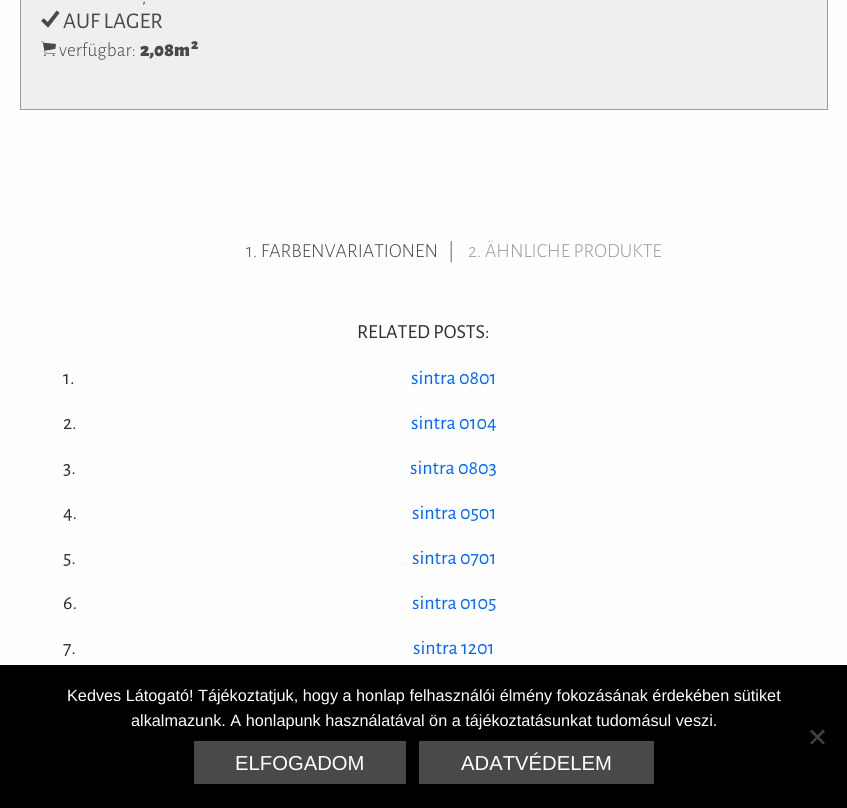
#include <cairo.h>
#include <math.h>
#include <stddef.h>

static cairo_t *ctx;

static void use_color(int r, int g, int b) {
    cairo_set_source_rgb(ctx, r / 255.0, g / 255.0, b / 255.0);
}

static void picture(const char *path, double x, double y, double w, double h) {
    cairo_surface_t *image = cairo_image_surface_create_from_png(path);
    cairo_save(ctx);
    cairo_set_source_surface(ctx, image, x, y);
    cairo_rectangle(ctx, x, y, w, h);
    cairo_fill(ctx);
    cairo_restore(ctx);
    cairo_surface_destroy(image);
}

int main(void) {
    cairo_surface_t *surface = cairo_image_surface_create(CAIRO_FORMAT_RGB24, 847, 808);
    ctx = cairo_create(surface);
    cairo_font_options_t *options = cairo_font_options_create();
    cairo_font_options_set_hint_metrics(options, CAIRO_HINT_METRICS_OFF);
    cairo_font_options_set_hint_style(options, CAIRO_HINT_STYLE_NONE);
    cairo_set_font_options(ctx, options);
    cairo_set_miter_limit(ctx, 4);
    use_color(254, 254, 255);
    cairo_paint(ctx);
    use_color(239, 239, 239);
    cairo_rectangle(ctx, 20.5, -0.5, 807, 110);
    cairo_fill_preserve(ctx);
    use_color(154, 154, 155);
    cairo_set_line_width(ctx, 1);
    cairo_stroke(ctx);
    cairo_select_font_face(ctx, "Alegreya Sans", CAIRO_FONT_SLANT_NORMAL, CAIRO_FONT_WEIGHT_NORMAL);
    cairo_set_font_size(ctx, 17);
    use_color(73, 73, 74);
    cairo_move_to(ctx, 142, 3);
    cairo_show_text(ctx, ",");
    picture("img1.png", 41, 10, 19, 18);
    cairo_set_font_size(ctx, 22.5);
    cairo_move_to(ctx, 63, 28);
    cairo_show_text(ctx, "AUF LAGER");
    picture("img2.png", 41, 41, 15, 16);
    cairo_select_font_face(ctx, "Alegreya Sans Light", CAIRO_FONT_SLANT_NORMAL, CAIRO_FONT_WEIGHT_NORMAL);
    cairo_set_font_size(ctx, 19.5);
    cairo_move_to(ctx, 59, 56);
    cairo_show_text(ctx, "verfügbar:");
    cairo_select_font_face(ctx, "Alegreya Sans Black", CAIRO_FONT_SLANT_NORMAL, CAIRO_FONT_WEIGHT_NORMAL);
    cairo_move_to(ctx, 140, 56);
    cairo_show_text(ctx, "2,08m");
    cairo_set_font_size(ctx, 15);
    cairo_move_to(ctx, 191, 49);
    cairo_show_text(ctx, "2");
    cairo_select_font_face(ctx, "Alegreya Sans Light", CAIRO_FONT_SLANT_NORMAL, CAIRO_FONT_WEIGHT_NORMAL);
    cairo_set_font_size(ctx, 20);
    cairo_move_to(ctx, 246, 257);
    cairo_show_text(ctx, "1. FARBENVARIATIONEN");
    cairo_move_to(ctx, 448, 257);
    cairo_show_text(ctx, "|");
    use_color(154, 154, 155);
    cairo_move_to(ctx, 468, 257);
    cairo_show_text(ctx, "2. ÄHNLICHE PRODUKTE");
    cairo_select_font_face(ctx, "Alegreya Sans", CAIRO_FONT_SLANT_NORMAL, CAIRO_FONT_WEIGHT_NORMAL);
    use_color(47, 47, 47);
    cairo_move_to(ctx, 357, 338);
    cairo_show_text(ctx, "RELATED POSTS:");
    cairo_move_to(ctx, 63, 384);
    cairo_show_text(ctx, "1.");
    use_color(0, 102, 255);
    cairo_move_to(ctx, 411, 384);
    cairo_show_text(ctx, "sintra 0801");
    use_color(47, 47, 47);
    cairo_move_to(ctx, 63, 429);
    cairo_show_text(ctx, "2.");
    use_color(0, 102, 255);
    cairo_move_to(ctx, 411, 429);
    cairo_show_text(ctx, "sintra 0104");
    use_color(47, 47, 47);
    cairo_move_to(ctx, 63, 474);
    cairo_show_text(ctx, "3.");
    use_color(0, 102, 255);
    cairo_move_to(ctx, 410, 474);
    cairo_show_text(ctx, "sintra 0803");
    use_color(47, 47, 47);
    cairo_move_to(ctx, 63, 519);
    cairo_show_text(ctx, "4.");
    use_color(0, 102, 255);
    cairo_move_to(ctx, 412, 519);
    cairo_show_text(ctx, "sintra 0501");
    use_color(47, 47, 47);
    cairo_move_to(ctx, 63, 564);
    cairo_show_text(ctx, "5.");
    use_color(0, 102, 255);
    cairo_move_to(ctx, 412, 564);
    cairo_show_text(ctx, "sintra 0701");
    use_color(47, 47, 47);
    cairo_move_to(ctx, 63, 609);
    cairo_show_text(ctx, "6.");
    use_color(0, 102, 255);
    cairo_move_to(ctx, 412, 609);
    cairo_show_text(ctx, "sintra 0105");
    use_color(47, 47, 47);
    cairo_move_to(ctx, 63, 654);
    cairo_show_text(ctx, "7.");
    use_color(0, 102, 255);
    cairo_move_to(ctx, 413, 654);
    cairo_show_text(ctx, "sintra 1201");
    use_color(0, 0, 0);
    cairo_rectangle(ctx, 0, 665, 847, 143);
    cairo_fill(ctx);
    cairo_select_font_face(ctx, "Liberation Sans", CAIRO_FONT_SLANT_NORMAL, CAIRO_FONT_WEIGHT_NORMAL);
    cairo_set_font_size(ctx, 16.25);
    use_color(255, 255, 255);
    cairo_move_to(ctx, 67, 701);
    cairo_show_text(ctx, "Kedves Látogató! Tájékoztatjuk, hogy a honlap felhasználói élmény fokozásának érdekében sütiket");
    cairo_move_to(ctx, 131, 726);
    cairo_show_text(ctx, "alkalmazunk. A honlapunk használatával ön a tájékoztatásunkat tudomásul veszi.");
    use_color(64, 64, 64);
    cairo_new_path(ctx);
    cairo_move_to(ctx, 823, 729.5);
    cairo_line_to(ctx, 825, 731.5);
    cairo_line_to(ctx, 812, 744.5);
    cairo_line_to(ctx, 810, 743);
    cairo_close_path(ctx);
    cairo_fill(ctx);
    cairo_new_path(ctx);
    cairo_move_to(ctx, 810, 731.5);
    cairo_line_to(ctx, 812, 729.5);
    cairo_line_to(ctx, 825, 743);
    cairo_line_to(ctx, 823, 744.5);
    cairo_close_path(ctx);
    cairo_fill(ctx);
    use_color(73, 73, 74);
    cairo_rectangle(ctx, 194, 741, 212, 43);
    cairo_fill(ctx);
    cairo_set_font_size(ctx, 20.25);
    use_color(255, 255, 255);
    cairo_move_to(ctx, 235, 770);
    cairo_show_text(ctx, "ELFOGADOM");
    use_color(73, 73, 74);
    cairo_rectangle(ctx, 419, 741, 235, 43);
    cairo_fill(ctx);
    use_color(255, 255, 255);
    cairo_move_to(ctx, 461, 770);
    cairo_show_text(ctx, "ADATVÉDELEM");
    cairo_surface_write_to_png(surface, "result.png");
    cairo_font_options_destroy(options);
    cairo_destroy(ctx);
    cairo_surface_destroy(surface);
    return 0;
}
